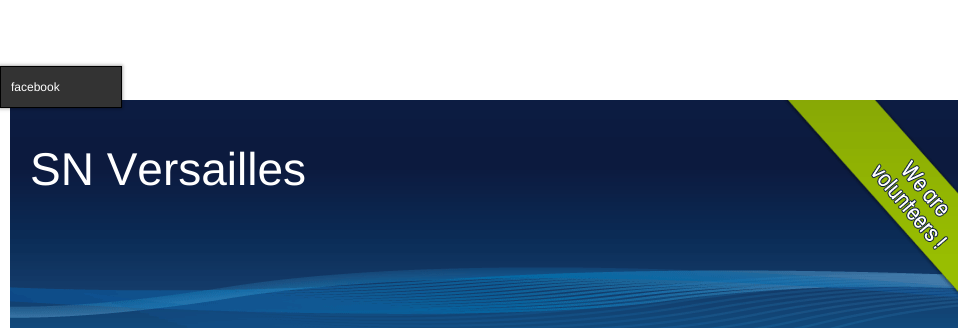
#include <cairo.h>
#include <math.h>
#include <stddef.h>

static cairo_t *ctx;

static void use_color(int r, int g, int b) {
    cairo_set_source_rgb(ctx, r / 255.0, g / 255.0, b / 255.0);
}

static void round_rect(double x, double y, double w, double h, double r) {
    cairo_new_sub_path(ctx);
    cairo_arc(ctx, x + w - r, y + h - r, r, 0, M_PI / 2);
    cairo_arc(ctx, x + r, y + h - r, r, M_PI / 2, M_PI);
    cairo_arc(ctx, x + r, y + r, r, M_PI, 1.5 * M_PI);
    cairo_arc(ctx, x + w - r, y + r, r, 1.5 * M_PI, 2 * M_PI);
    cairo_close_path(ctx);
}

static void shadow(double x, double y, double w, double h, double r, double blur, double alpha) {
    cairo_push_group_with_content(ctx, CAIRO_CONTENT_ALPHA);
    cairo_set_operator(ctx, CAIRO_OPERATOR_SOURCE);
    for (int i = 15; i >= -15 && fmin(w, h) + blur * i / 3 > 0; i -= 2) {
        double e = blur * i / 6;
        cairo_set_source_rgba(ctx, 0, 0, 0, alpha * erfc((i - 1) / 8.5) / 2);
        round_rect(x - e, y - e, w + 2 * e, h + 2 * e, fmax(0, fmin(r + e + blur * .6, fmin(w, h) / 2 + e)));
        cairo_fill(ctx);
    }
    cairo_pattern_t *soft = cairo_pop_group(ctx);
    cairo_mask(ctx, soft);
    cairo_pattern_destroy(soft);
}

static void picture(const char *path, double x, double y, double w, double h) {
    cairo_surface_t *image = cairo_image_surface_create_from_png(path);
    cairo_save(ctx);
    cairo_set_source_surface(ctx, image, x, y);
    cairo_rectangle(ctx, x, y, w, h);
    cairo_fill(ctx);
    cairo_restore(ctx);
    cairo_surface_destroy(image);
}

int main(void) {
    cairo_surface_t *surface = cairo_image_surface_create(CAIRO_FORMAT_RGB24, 968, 328);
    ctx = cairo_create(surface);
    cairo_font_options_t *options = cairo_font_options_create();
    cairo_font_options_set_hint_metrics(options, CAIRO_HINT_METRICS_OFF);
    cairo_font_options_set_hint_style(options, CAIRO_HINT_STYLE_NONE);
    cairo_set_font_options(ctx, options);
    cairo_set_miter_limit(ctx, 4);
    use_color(255, 255, 255);
    cairo_paint(ctx);
    picture("img1.png", 10, 100, 948, 228);
    use_color(0, 0, 0);
    shadow(0, 66, 122, 42, 0, 2, 0.5);
    use_color(51, 51, 51);
    cairo_rectangle(ctx, 0.5, 66.5, 121, 41);
    cairo_fill_preserve(ctx);
    use_color(0, 0, 0);
    cairo_set_line_width(ctx, 1);
    cairo_stroke(ctx);
    cairo_select_font_face(ctx, "Liberation Sans", CAIRO_FONT_SLANT_NORMAL, CAIRO_FONT_WEIGHT_NORMAL);
    cairo_set_font_size(ctx, 12);
    use_color(255, 255, 255);
    cairo_move_to(ctx, 11, 91);
    cairo_show_text(ctx, "facebook");
    cairo_set_font_size(ctx, 46);
    cairo_move_to(ctx, 30, 185);
    cairo_show_text(ctx, "SN Versailles");
    cairo_surface_write_to_png(surface, "result.png");
    cairo_font_options_destroy(options);
    cairo_destroy(ctx);
    cairo_surface_destroy(surface);
    return 0;
}
